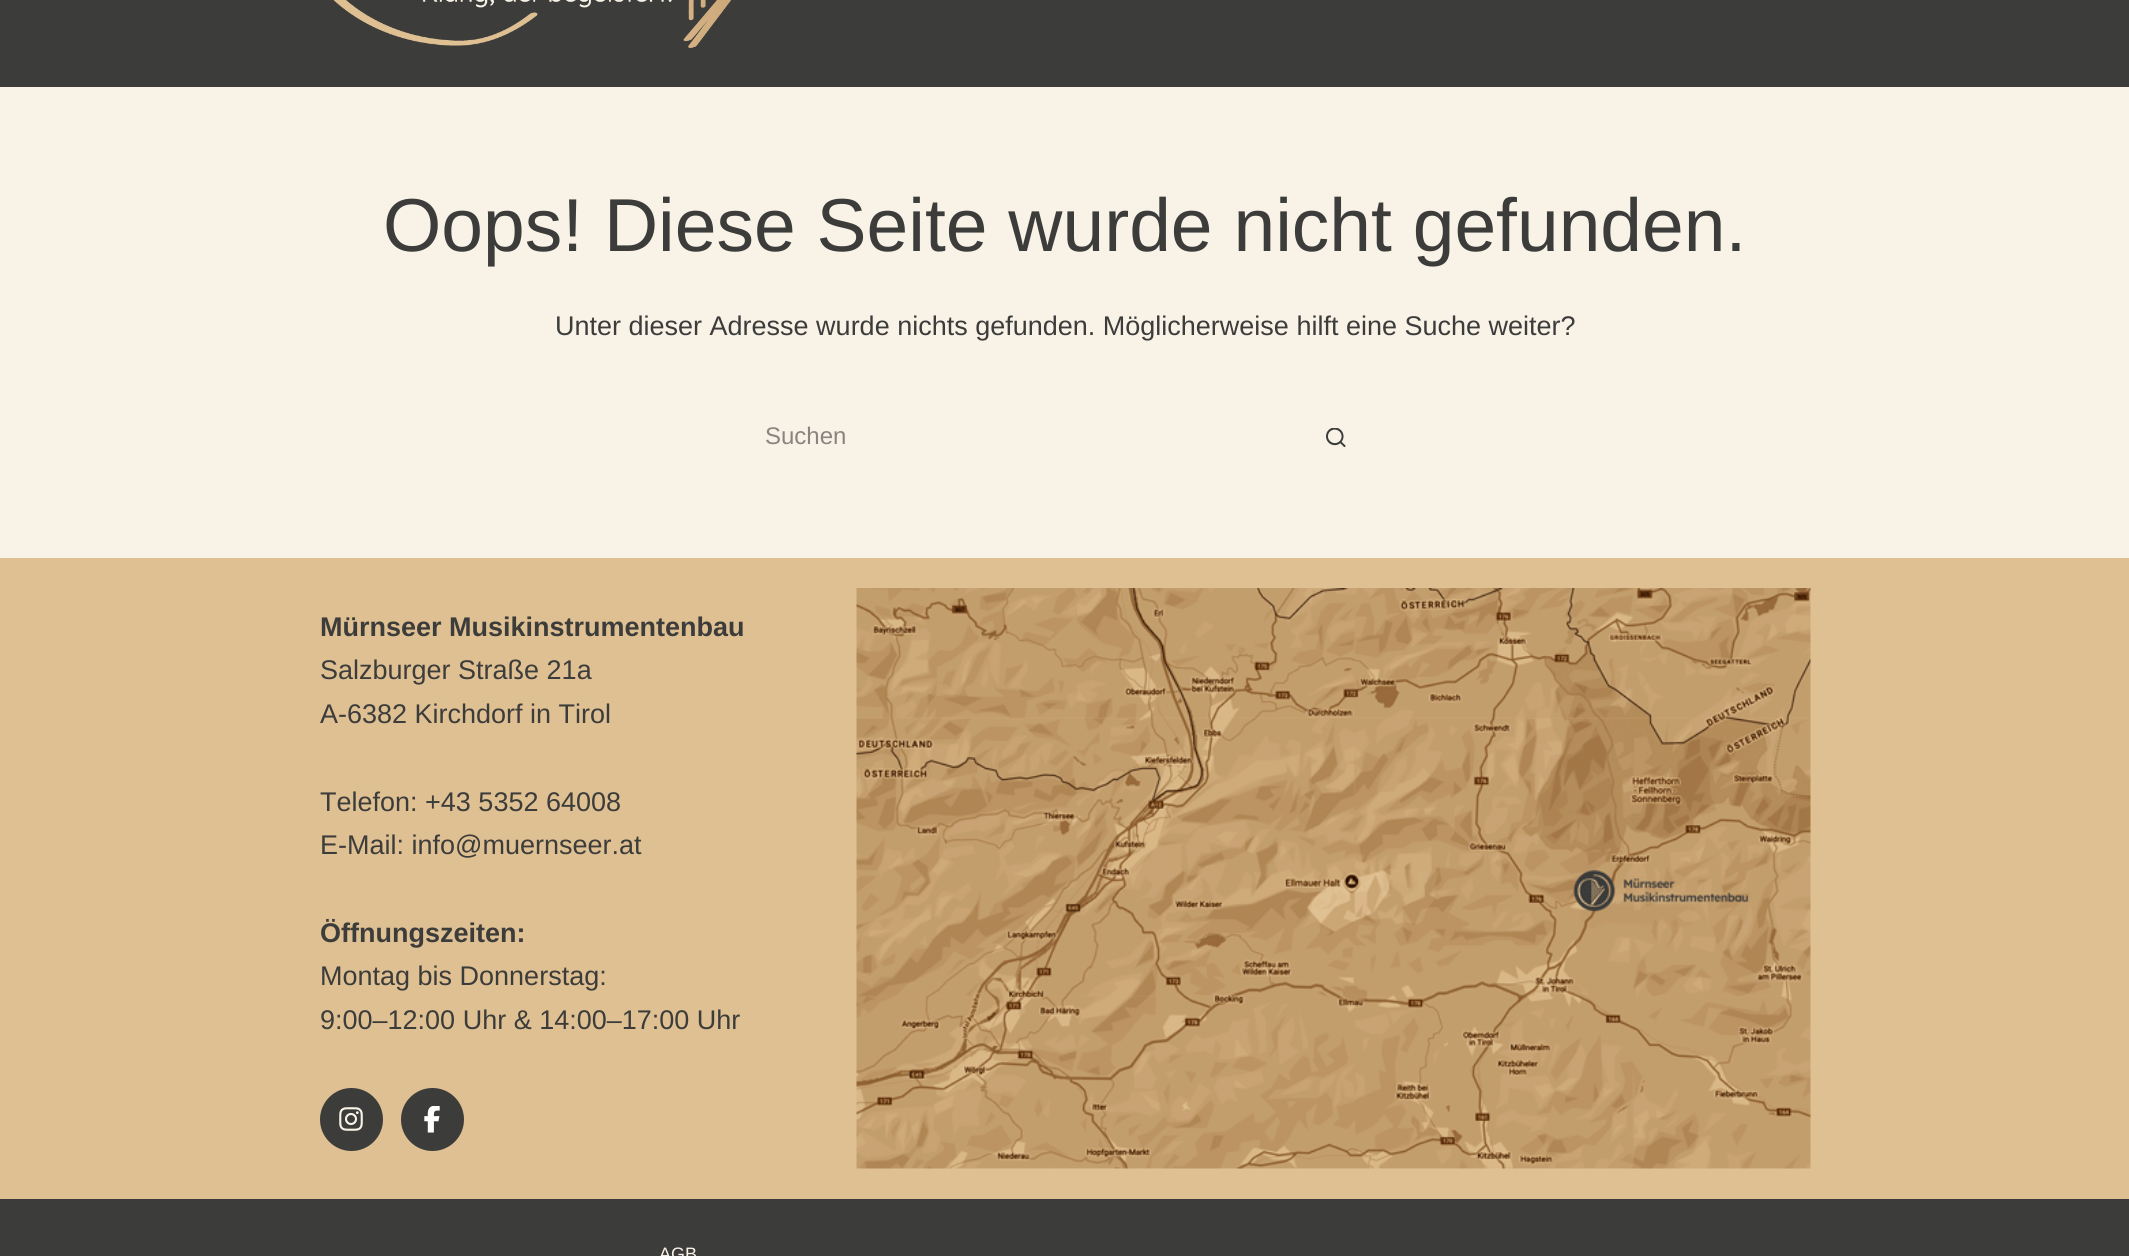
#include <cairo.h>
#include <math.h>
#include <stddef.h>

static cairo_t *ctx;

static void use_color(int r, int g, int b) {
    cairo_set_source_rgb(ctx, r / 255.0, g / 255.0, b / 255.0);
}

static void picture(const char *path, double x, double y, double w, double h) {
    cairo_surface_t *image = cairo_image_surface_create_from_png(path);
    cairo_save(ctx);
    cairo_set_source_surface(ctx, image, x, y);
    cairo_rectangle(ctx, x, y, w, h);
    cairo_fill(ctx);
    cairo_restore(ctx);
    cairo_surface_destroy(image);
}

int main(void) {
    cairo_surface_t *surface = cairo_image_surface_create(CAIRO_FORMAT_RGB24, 2129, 1256);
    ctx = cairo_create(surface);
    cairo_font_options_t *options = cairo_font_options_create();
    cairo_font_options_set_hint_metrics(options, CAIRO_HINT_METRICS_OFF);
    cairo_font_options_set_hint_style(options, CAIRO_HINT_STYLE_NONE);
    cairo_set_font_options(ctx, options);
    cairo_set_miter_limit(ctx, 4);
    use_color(249, 242, 231);
    cairo_paint(ctx);
    use_color(60, 60, 59);
    cairo_rectangle(ctx, 0, 0, 2129, 87);
    cairo_fill(ctx);
    picture("img1.png", 333, 0, 398, 48);
    cairo_select_font_face(ctx, "Liberation Sans", CAIRO_FONT_SLANT_NORMAL, CAIRO_FONT_WEIGHT_NORMAL);
    cairo_set_font_size(ctx, 75);
    cairo_move_to(ctx, 383, 251);
    cairo_show_text(ctx, "Oops! Diese Seite wurde nicht gefunden.");
    cairo_set_font_size(ctx, 27);
    cairo_move_to(ctx, 555, 335);
    cairo_show_text(ctx, "Unter dieser Adresse wurde nichts gefunden. Möglicherweise hilft eine Suche weiter?");
    cairo_set_font_size(ctx, 24);
    use_color(136, 133, 128);
    cairo_move_to(ctx, 765, 444);
    cairo_show_text(ctx, "Suchen");
    picture("img2.png", 1326, 428, 20, 19);
    use_color(223, 192, 146);
    cairo_rectangle(ctx, 0, 558, 2129, 641);
    cairo_fill(ctx);
    cairo_select_font_face(ctx, "Liberation Sans", CAIRO_FONT_SLANT_NORMAL, CAIRO_FONT_WEIGHT_BOLD);
    cairo_set_font_size(ctx, 27);
    use_color(60, 60, 59);
    cairo_move_to(ctx, 320, 636);
    cairo_show_text(ctx, "Mürnseer Musikinstrumentenbau");
    cairo_select_font_face(ctx, "Liberation Sans", CAIRO_FONT_SLANT_NORMAL, CAIRO_FONT_WEIGHT_NORMAL);
    cairo_move_to(ctx, 320, 679);
    cairo_show_text(ctx, "Salzburger Straße 21a");
    cairo_move_to(ctx, 320, 723);
    cairo_show_text(ctx, "A-6382 Kirchdorf in Tirol");
    cairo_move_to(ctx, 320, 811);
    cairo_show_text(ctx, "Telefon: +43 5352 64008");
    cairo_move_to(ctx, 320, 854);
    cairo_show_text(ctx, "E-Mail: info@muernseer.at");
    cairo_select_font_face(ctx, "Liberation Sans", CAIRO_FONT_SLANT_NORMAL, CAIRO_FONT_WEIGHT_BOLD);
    cairo_move_to(ctx, 320, 942);
    cairo_show_text(ctx, "Öffnungszeiten:");
    cairo_select_font_face(ctx, "Liberation Sans", CAIRO_FONT_SLANT_NORMAL, CAIRO_FONT_WEIGHT_NORMAL);
    cairo_move_to(ctx, 320, 985);
    cairo_show_text(ctx, "Montag bis Donnerstag:");
    cairo_move_to(ctx, 320, 1029);
    cairo_show_text(ctx, "9:00–12:00 Uhr & 14:00–17:00 Uhr");
    cairo_new_path(ctx);
    cairo_arc(ctx, 351.5, 1119.5, 31.5, 0, 2 * M_PI);
    cairo_fill(ctx);
    picture("img3.png", 339, 1107, 24, 24);
    cairo_arc(ctx, 432.5, 1119.5, 31.5, 0, 2 * M_PI);
    cairo_fill(ctx);
    picture("img4.png", 424, 1106, 16, 27);
    picture("img5.png", 856, 588, 955, 581);
    cairo_rectangle(ctx, 0, 1199, 2129, 57);
    cairo_fill(ctx);
    cairo_set_font_size(ctx, 18);
    use_color(249, 242, 231);
    cairo_move_to(ctx, 659, 1260);
    cairo_show_text(ctx, "AGB");
    cairo_surface_write_to_png(surface, "result.png");
    cairo_font_options_destroy(options);
    cairo_destroy(ctx);
    cairo_surface_destroy(surface);
    return 0;
}
